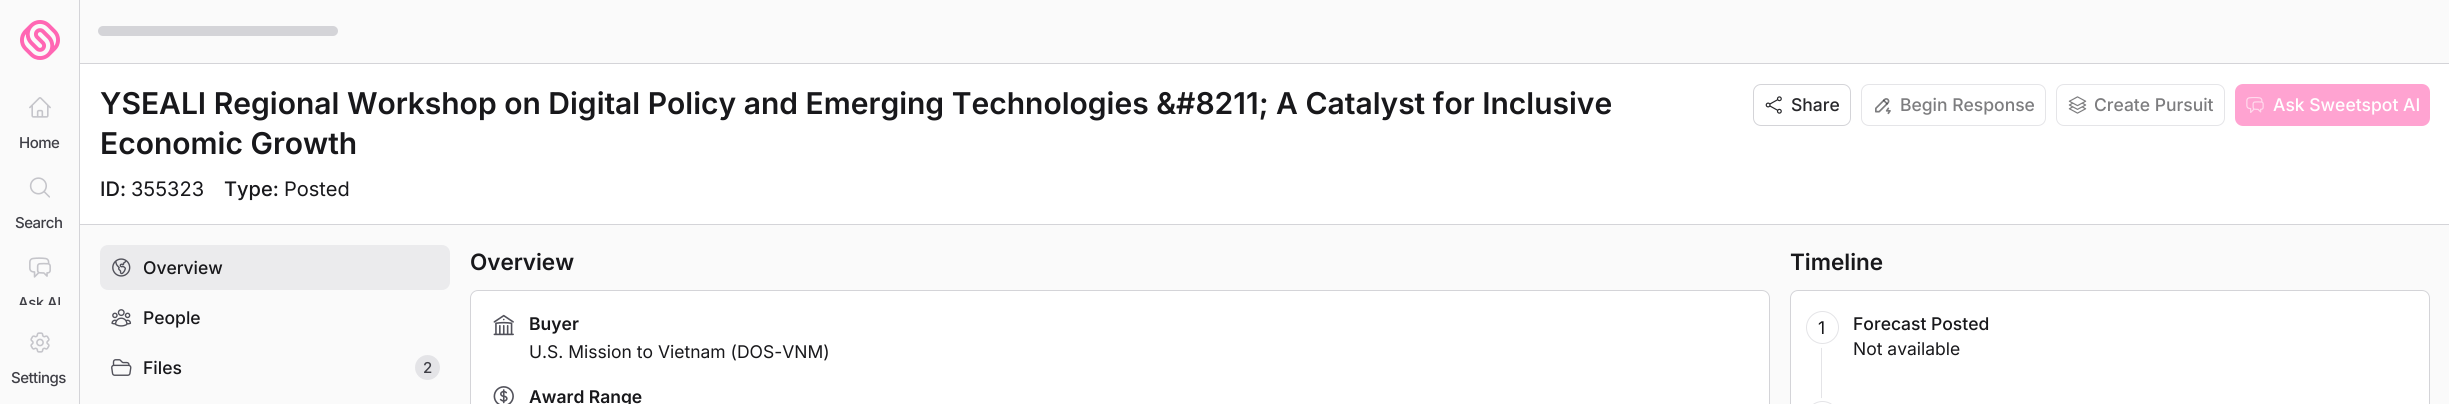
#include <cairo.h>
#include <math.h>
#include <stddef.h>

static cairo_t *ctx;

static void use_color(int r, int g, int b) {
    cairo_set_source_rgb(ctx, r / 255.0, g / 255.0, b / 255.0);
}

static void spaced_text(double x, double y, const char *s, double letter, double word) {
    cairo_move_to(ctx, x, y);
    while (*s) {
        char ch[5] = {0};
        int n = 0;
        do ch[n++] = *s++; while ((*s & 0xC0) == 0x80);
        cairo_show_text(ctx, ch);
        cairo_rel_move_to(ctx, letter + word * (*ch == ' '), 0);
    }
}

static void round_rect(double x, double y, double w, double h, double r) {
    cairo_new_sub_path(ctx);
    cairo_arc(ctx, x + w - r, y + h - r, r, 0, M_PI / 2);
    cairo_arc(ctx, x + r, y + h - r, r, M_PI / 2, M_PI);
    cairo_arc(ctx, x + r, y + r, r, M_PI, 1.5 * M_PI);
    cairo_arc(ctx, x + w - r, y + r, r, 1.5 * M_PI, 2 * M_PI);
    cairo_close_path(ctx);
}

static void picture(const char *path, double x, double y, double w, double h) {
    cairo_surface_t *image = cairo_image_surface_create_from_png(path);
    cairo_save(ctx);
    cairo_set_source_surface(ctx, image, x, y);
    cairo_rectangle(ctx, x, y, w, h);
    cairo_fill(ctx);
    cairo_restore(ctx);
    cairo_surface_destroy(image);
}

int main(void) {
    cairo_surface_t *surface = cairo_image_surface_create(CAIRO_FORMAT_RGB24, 2449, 404);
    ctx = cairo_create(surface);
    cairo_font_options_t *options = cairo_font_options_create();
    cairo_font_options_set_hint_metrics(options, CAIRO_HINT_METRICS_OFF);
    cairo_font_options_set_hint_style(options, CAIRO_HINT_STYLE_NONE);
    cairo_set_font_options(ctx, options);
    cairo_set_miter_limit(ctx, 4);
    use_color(250, 250, 250);
    cairo_paint(ctx);
    use_color(212, 212, 216);
    cairo_rectangle(ctx, 79, 0, 1, 404);
    cairo_fill(ctx);
    picture("img1.png", 20, 20, 40, 40);
    picture("img2.png", 29, 97, 22, 21);
    cairo_select_font_face(ctx, "Inter Medium", CAIRO_FONT_SLANT_NORMAL, CAIRO_FONT_WEIGHT_NORMAL);
    cairo_set_font_size(ctx, 15);
    use_color(63, 63, 70);
    spaced_text(19, 148, "Home", -0.5, 0);
    picture("img3.png", 29, 177, 21, 21);
    spaced_text(15, 228, "Search", -0.5, 0);
    picture("img4.png", 29, 257, 22, 21);
    cairo_save(ctx);
    cairo_rectangle(ctx, 0, 80, 79, 225);
    cairo_clip(ctx);
    spaced_text(18, 308, "Ask AI", -0.5, 0);
    cairo_restore(ctx);
    picture("img5.png", 30, 332, 20, 21);
    spaced_text(11, 383, "Settings", -0.5, 0);
    use_color(212, 212, 216);
    round_rect(98, 26, 240, 10, 5);
    cairo_fill(ctx);
    cairo_rectangle(ctx, 80, 63, 2369, 1);
    cairo_fill(ctx);
    use_color(255, 255, 255);
    cairo_rectangle(ctx, 80, 64, 2369, 160);
    cairo_fill(ctx);
    use_color(212, 212, 216);
    cairo_rectangle(ctx, 80, 224, 2369, 1);
    cairo_fill(ctx);
    cairo_select_font_face(ctx, "Inter SemiBold", CAIRO_FONT_SLANT_NORMAL, CAIRO_FONT_WEIGHT_NORMAL);
    cairo_set_font_size(ctx, 30);
    use_color(24, 24, 27);
    cairo_move_to(ctx, 100, 114);
    cairo_show_text(ctx, "YSEALI Regional Workshop on Digital Policy and Emerging Technologies &#8211; A Catalyst for Inclusive");
    cairo_move_to(ctx, 100, 154);
    cairo_show_text(ctx, "Economic Growth");
    cairo_select_font_face(ctx, "Inter Medium", CAIRO_FONT_SLANT_NORMAL, CAIRO_FONT_WEIGHT_NORMAL);
    cairo_set_font_size(ctx, 20);
    cairo_move_to(ctx, 100, 196);
    cairo_show_text(ctx, "ID:");
    cairo_select_font_face(ctx, "Inter", CAIRO_FONT_SLANT_NORMAL, CAIRO_FONT_WEIGHT_NORMAL);
    cairo_move_to(ctx, 131, 196);
    cairo_show_text(ctx, "355323");
    cairo_select_font_face(ctx, "Inter Medium", CAIRO_FONT_SLANT_NORMAL, CAIRO_FONT_WEIGHT_NORMAL);
    cairo_move_to(ctx, 224, 196);
    cairo_show_text(ctx, "Type:");
    cairo_select_font_face(ctx, "Inter", CAIRO_FONT_SLANT_NORMAL, CAIRO_FONT_WEIGHT_NORMAL);
    cairo_move_to(ctx, 284, 196);
    cairo_show_text(ctx, "Posted");
    round_rect(1753.5, 84.5, 97, 41, 7.5);
    use_color(212, 212, 216);
    cairo_set_line_width(ctx, 1);
    cairo_stroke(ctx);
    picture("img6.png", 1765, 96, 17, 18);
    cairo_select_font_face(ctx, "Inter Medium", CAIRO_FONT_SLANT_NORMAL, CAIRO_FONT_WEIGHT_NORMAL);
    cairo_set_font_size(ctx, 17.5);
    use_color(39, 39, 42);
    cairo_move_to(ctx, 1791, 111);
    cairo_show_text(ctx, "Share");
    round_rect(1861.5, 84.5, 184, 41, 7.5);
    use_color(229, 229, 232);
    cairo_stroke(ctx);
    picture("img7.png", 1875, 98, 16, 17);
    use_color(125, 125, 127);
    cairo_move_to(ctx, 1900, 111);
    cairo_show_text(ctx, "Begin Response");
    round_rect(2056.5, 84.5, 168, 41, 7.5);
    use_color(229, 229, 232);
    cairo_stroke(ctx);
    picture("img8.png", 2068, 96, 19, 18);
    use_color(125, 125, 127);
    cairo_move_to(ctx, 2094, 111);
    cairo_show_text(ctx, "Create Pursuit");
    use_color(255, 163, 209);
    round_rect(2235, 84, 195, 42, 8);
    cairo_fill(ctx);
    picture("img9.png", 2246, 97, 18, 16);
    use_color(255, 255, 255);
    cairo_move_to(ctx, 2273, 111);
    cairo_show_text(ctx, "Ask Sweetspot AI");
    use_color(235, 235, 237);
    round_rect(100, 245, 350, 45, 8);
    cairo_fill(ctx);
    picture("img10.png", 112, 258, 19, 19);
    use_color(24, 24, 27);
    cairo_move_to(ctx, 143, 274);
    cairo_show_text(ctx, "Overview");
    picture("img11.png", 111, 309, 21, 18);
    cairo_move_to(ctx, 143, 324);
    cairo_show_text(ctx, "People");
    picture("img12.png", 111, 359, 21, 17);
    cairo_move_to(ctx, 143, 374);
    cairo_show_text(ctx, "Files");
    use_color(228, 228, 231);
    cairo_new_path(ctx);
    cairo_arc(ctx, 427.5, 367.5, 12.5, 0, 2 * M_PI);
    cairo_fill(ctx);
    cairo_set_font_size(ctx, 15);
    use_color(63, 63, 70);
    cairo_move_to(ctx, 423, 373);
    cairo_show_text(ctx, "2");
    cairo_select_font_face(ctx, "Inter SemiBold", CAIRO_FONT_SLANT_NORMAL, CAIRO_FONT_WEIGHT_NORMAL);
    cairo_set_font_size(ctx, 22.5);
    use_color(24, 24, 27);
    cairo_move_to(ctx, 470, 270);
    cairo_show_text(ctx, "Overview");
    use_color(255, 255, 255);
    cairo_new_path(ctx);
    cairo_move_to(ctx, 478, 290);
    cairo_line_to(ctx, 1762, 290);
    cairo_curve_to(ctx, 1766.5, 290, 1770, 293.5, 1770, 298);
    cairo_line_to(ctx, 1770, 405);
    cairo_line_to(ctx, 470, 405);
    cairo_line_to(ctx, 470, 298);
    cairo_curve_to(ctx, 470, 293.5, 473.5, 290, 478, 290);
    cairo_close_path(ctx);
    cairo_fill(ctx);
    round_rect(470.5, 290.5, 1299, 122, 7.5);
    use_color(212, 212, 216);
    cairo_stroke(ctx);
    picture("img13.png", 493, 314, 21, 22);
    cairo_set_font_size(ctx, 17.5);
    use_color(24, 24, 27);
    cairo_move_to(ctx, 529, 330);
    cairo_show_text(ctx, "Buyer");
    cairo_select_font_face(ctx, "Inter", CAIRO_FONT_SLANT_NORMAL, CAIRO_FONT_WEIGHT_NORMAL);
    cairo_move_to(ctx, 529, 358);
    cairo_show_text(ctx, "U.S. Mission to Vietnam (DOS-VNM)");
    picture("img14.png", 493, 386, 21, 18);
    cairo_select_font_face(ctx, "Inter SemiBold", CAIRO_FONT_SLANT_NORMAL, CAIRO_FONT_WEIGHT_NORMAL);
    cairo_move_to(ctx, 529, 403);
    cairo_show_text(ctx, "Award Range");
    cairo_set_font_size(ctx, 22.5);
    cairo_move_to(ctx, 1790, 270);
    cairo_show_text(ctx, "Timeline");
    use_color(255, 255, 255);
    cairo_new_path(ctx);
    cairo_move_to(ctx, 1798, 290);
    cairo_line_to(ctx, 2422, 290);
    cairo_curve_to(ctx, 2426.5, 290, 2430, 293.5, 2430, 298);
    cairo_line_to(ctx, 2430, 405);
    cairo_line_to(ctx, 1790, 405);
    cairo_line_to(ctx, 1790, 298);
    cairo_curve_to(ctx, 1790, 293.5, 1793.5, 290, 1798, 290);
    cairo_close_path(ctx);
    cairo_fill(ctx);
    round_rect(1790.5, 290.5, 639, 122, 7.5);
    use_color(212, 212, 216);
    cairo_stroke(ctx);
    use_color(228, 228, 231);
    cairo_rectangle(ctx, 1821, 343, 1, 61);
    cairo_fill(ctx);
    cairo_arc(ctx, 1823, 328, 18, 0, 2 * M_PI);
    use_color(255, 255, 255);
    cairo_set_line_width(ctx, 4);
    cairo_stroke(ctx);
    cairo_arc(ctx, 1822.5, 327.5, 16, 0, 2 * M_PI);
    cairo_fill_preserve(ctx);
    use_color(228, 228, 231);
    cairo_set_line_width(ctx, 1);
    cairo_stroke(ctx);
    cairo_select_font_face(ctx, "Inter", CAIRO_FONT_SLANT_NORMAL, CAIRO_FONT_WEIGHT_NORMAL);
    cairo_set_font_size(ctx, 17.5);
    use_color(24, 24, 27);
    cairo_move_to(ctx, 1818, 334);
    cairo_show_text(ctx, "1");
    cairo_select_font_face(ctx, "Inter Medium", CAIRO_FONT_SLANT_NORMAL, CAIRO_FONT_WEIGHT_NORMAL);
    cairo_move_to(ctx, 1853, 330);
    cairo_show_text(ctx, "Forecast Posted");
    cairo_select_font_face(ctx, "Inter", CAIRO_FONT_SLANT_NORMAL, CAIRO_FONT_WEIGHT_NORMAL);
    cairo_move_to(ctx, 1853, 355);
    cairo_show_text(ctx, "Not available");
    round_rect(1805, 400, 36, 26, 18);
    use_color(255, 255, 255);
    cairo_set_line_width(ctx, 4);
    cairo_stroke(ctx);
    cairo_new_path(ctx);
    cairo_move_to(ctx, 1822.5, 401);
    cairo_curve_to(ctx, 1831.5, 401, 1839, 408.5, 1839, 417.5);
    cairo_line_to(ctx, 1839, 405);
    cairo_line_to(ctx, 1806, 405);
    cairo_line_to(ctx, 1806, 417.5);
    cairo_curve_to(ctx, 1806, 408.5, 1813.5, 401, 1822.5, 401);
    cairo_close_path(ctx);
    cairo_fill(ctx);
    round_rect(1806.5, 401.5, 32, 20, 16);
    use_color(228, 228, 231);
    cairo_set_line_width(ctx, 1);
    cairo_stroke(ctx);
    cairo_surface_write_to_png(surface, "result.png");
    cairo_font_options_destroy(options);
    cairo_destroy(ctx);
    cairo_surface_destroy(surface);
    return 0;
}
